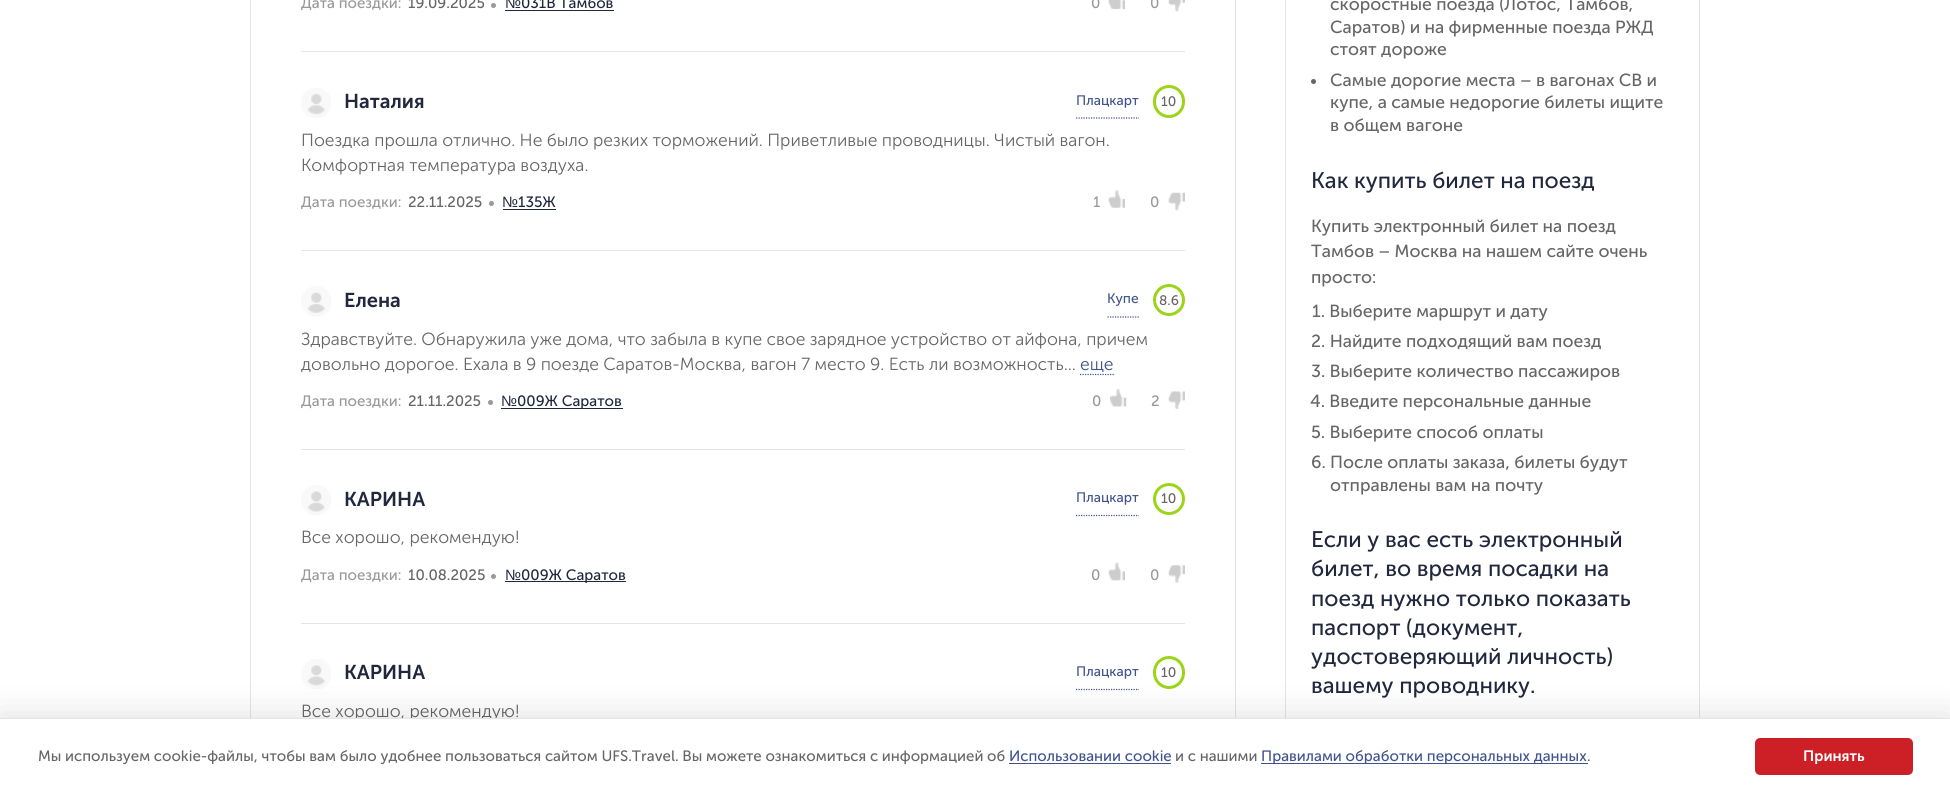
#include <cairo.h>
#include <math.h>
#include <stddef.h>

static cairo_t *ctx;

static void use_color(int r, int g, int b) {
    cairo_set_source_rgb(ctx, r / 255.0, g / 255.0, b / 255.0);
}

static void round_rect(double x, double y, double w, double h, double r) {
    cairo_new_sub_path(ctx);
    cairo_arc(ctx, x + w - r, y + h - r, r, 0, M_PI / 2);
    cairo_arc(ctx, x + r, y + h - r, r, M_PI / 2, M_PI);
    cairo_arc(ctx, x + r, y + r, r, M_PI, 1.5 * M_PI);
    cairo_arc(ctx, x + w - r, y + r, r, 1.5 * M_PI, 2 * M_PI);
    cairo_close_path(ctx);
}

static void shadow(double x, double y, double w, double h, double r, double blur, double alpha) {
    cairo_push_group_with_content(ctx, CAIRO_CONTENT_ALPHA);
    cairo_set_operator(ctx, CAIRO_OPERATOR_SOURCE);
    for (int i = 15; i >= -15 && fmin(w, h) + blur * i / 3 > 0; i -= 2) {
        double e = blur * i / 6;
        cairo_set_source_rgba(ctx, 0, 0, 0, alpha * erfc((i - 1) / 8.5) / 2);
        round_rect(x - e, y - e, w + 2 * e, h + 2 * e, fmax(0, fmin(r + e + blur * .6, fmin(w, h) / 2 + e)));
        cairo_fill(ctx);
    }
    cairo_pattern_t *soft = cairo_pop_group(ctx);
    cairo_mask(ctx, soft);
    cairo_pattern_destroy(soft);
}

static void picture(const char *path, double x, double y, double w, double h) {
    cairo_surface_t *image = cairo_image_surface_create_from_png(path);
    cairo_save(ctx);
    cairo_set_source_surface(ctx, image, x, y);
    cairo_rectangle(ctx, x, y, w, h);
    cairo_fill(ctx);
    cairo_restore(ctx);
    cairo_surface_destroy(image);
}

int main(void) {
    cairo_surface_t *surface = cairo_image_surface_create(CAIRO_FORMAT_RGB24, 1950, 793);
    ctx = cairo_create(surface);
    cairo_font_options_t *options = cairo_font_options_create();
    cairo_font_options_set_hint_metrics(options, CAIRO_HINT_METRICS_OFF);
    cairo_font_options_set_hint_style(options, CAIRO_HINT_STYLE_NONE);
    cairo_set_font_options(ctx, options);
    cairo_set_miter_limit(ctx, 4);
    use_color(255, 255, 255);
    cairo_paint(ctx);
    cairo_rectangle(ctx, 250.5, -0.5, 985, 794);
    use_color(228, 228, 228);
    cairo_set_line_width(ctx, 1);
    cairo_stroke(ctx);
    cairo_rectangle(ctx, 301, 51, 884, 1);
    cairo_fill(ctx);
    cairo_select_font_face(ctx, "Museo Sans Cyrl", CAIRO_FONT_SLANT_NORMAL, CAIRO_FONT_WEIGHT_NORMAL);
    cairo_set_font_size(ctx, 15);
    use_color(153, 153, 153);
    cairo_move_to(ctx, 301, 8);
    cairo_show_text(ctx, "Дата поездки:");
    use_color(102, 102, 102);
    cairo_move_to(ctx, 408, 8);
    cairo_show_text(ctx, "19.09.2025");
    use_color(153, 153, 153);
    cairo_new_path(ctx);
    cairo_arc(ctx, 493.5, 5.5, 2.5, 0, 2 * M_PI);
    cairo_fill(ctx);
    cairo_select_font_face(ctx, "Liberation Sans", CAIRO_FONT_SLANT_NORMAL, CAIRO_FONT_WEIGHT_NORMAL);
    use_color(33, 40, 62);
    cairo_move_to(ctx, 505, 8);
    cairo_show_text(ctx, "№");
    cairo_select_font_face(ctx, "Museo Sans Cyrl", CAIRO_FONT_SLANT_NORMAL, CAIRO_FONT_WEIGHT_NORMAL);
    cairo_move_to(ctx, 521, 8);
    cairo_show_text(ctx, "031В Тамбов");
    cairo_rectangle(ctx, 505, 10, 109, 1);
    cairo_fill(ctx);
    use_color(153, 153, 153);
    cairo_move_to(ctx, 1091, 8);
    cairo_show_text(ctx, "0");
    picture("img1.png", 1108, 0, 17, 10);
    cairo_move_to(ctx, 1150, 8);
    cairo_show_text(ctx, "0");
    picture("img2.png", 1168, 0, 17, 12);
    use_color(228, 228, 228);
    cairo_rectangle(ctx, 301, 250, 884, 1);
    cairo_fill(ctx);
    picture("img3.png", 301, 88, 30, 30);
    cairo_select_font_face(ctx, "Museo Sans Cyrl SemiBold", CAIRO_FONT_SLANT_NORMAL, CAIRO_FONT_WEIGHT_NORMAL);
    cairo_set_font_size(ctx, 20);
    use_color(33, 40, 62);
    cairo_move_to(ctx, 344, 108);
    cairo_show_text(ctx, "Наталия");
    cairo_new_path(ctx);
    cairo_move_to(ctx, 1076, 118);
    cairo_line_to(ctx, 1139, 118);
    use_color(64, 83, 142);
    cairo_set_line_width(ctx, 1.2);
    cairo_set_dash(ctx, (double[]){1.25, 1.25}, 2, 0);
    cairo_stroke(ctx);
    cairo_select_font_face(ctx, "Museo Sans Cyrl", CAIRO_FONT_SLANT_NORMAL, CAIRO_FONT_WEIGHT_NORMAL);
    cairo_set_font_size(ctx, 13.75);
    cairo_move_to(ctx, 1076, 105);
    cairo_show_text(ctx, "Плацкарт");
    round_rect(1154.5, 86.5, 29, 30, 14.5);
    use_color(154, 213, 24);
    cairo_set_line_width(ctx, 3);
    cairo_set_dash(ctx, NULL, 0, 0);
    cairo_stroke(ctx);
    use_color(102, 102, 102);
    cairo_move_to(ctx, 1161, 106);
    cairo_show_text(ctx, "10");
    cairo_select_font_face(ctx, "Museo Sans Cyrl Light", CAIRO_FONT_SLANT_NORMAL, CAIRO_FONT_WEIGHT_NORMAL);
    cairo_set_font_size(ctx, 17.5);
    cairo_move_to(ctx, 301, 146);
    cairo_show_text(ctx, "Поездка прошла отлично. Не было резких торможений. Приветливые проводницы. Чистый вагон.");
    cairo_move_to(ctx, 301, 171);
    cairo_show_text(ctx, "Комфортная температура воздуха.");
    cairo_select_font_face(ctx, "Museo Sans Cyrl", CAIRO_FONT_SLANT_NORMAL, CAIRO_FONT_WEIGHT_NORMAL);
    cairo_set_font_size(ctx, 15);
    use_color(153, 153, 153);
    cairo_move_to(ctx, 301, 207);
    cairo_show_text(ctx, "Дата поездки:");
    use_color(102, 102, 102);
    cairo_move_to(ctx, 408, 207);
    cairo_show_text(ctx, "22.11.2025");
    use_color(153, 153, 153);
    cairo_new_path(ctx);
    cairo_arc(ctx, 491.5, 203.5, 2.5, 0, 2 * M_PI);
    cairo_fill(ctx);
    cairo_select_font_face(ctx, "Liberation Sans", CAIRO_FONT_SLANT_NORMAL, CAIRO_FONT_WEIGHT_NORMAL);
    use_color(33, 40, 62);
    cairo_move_to(ctx, 502, 207);
    cairo_show_text(ctx, "№");
    cairo_select_font_face(ctx, "Museo Sans Cyrl", CAIRO_FONT_SLANT_NORMAL, CAIRO_FONT_WEIGHT_NORMAL);
    cairo_move_to(ctx, 518, 207);
    cairo_show_text(ctx, "135Ж");
    cairo_rectangle(ctx, 503, 209, 53, 1);
    cairo_fill(ctx);
    use_color(153, 153, 153);
    cairo_move_to(ctx, 1093, 207);
    cairo_show_text(ctx, "1");
    picture("img4.png", 1108, 190, 17, 18);
    cairo_move_to(ctx, 1150, 207);
    cairo_show_text(ctx, "0");
    picture("img5.png", 1168, 192, 17, 19);
    use_color(228, 228, 228);
    cairo_rectangle(ctx, 301, 449, 884, 1);
    cairo_fill(ctx);
    picture("img6.png", 301, 286, 30, 31);
    cairo_select_font_face(ctx, "Museo Sans Cyrl SemiBold", CAIRO_FONT_SLANT_NORMAL, CAIRO_FONT_WEIGHT_NORMAL);
    cairo_set_font_size(ctx, 20);
    use_color(33, 40, 62);
    cairo_move_to(ctx, 344, 307);
    cairo_show_text(ctx, "Елена");
    cairo_new_path(ctx);
    cairo_move_to(ctx, 1107.5, 317);
    cairo_line_to(ctx, 1139, 317);
    use_color(64, 83, 142);
    cairo_set_line_width(ctx, 1.2);
    cairo_set_dash(ctx, (double[]){1.25, 1.25}, 2, 0);
    cairo_stroke(ctx);
    cairo_select_font_face(ctx, "Museo Sans Cyrl", CAIRO_FONT_SLANT_NORMAL, CAIRO_FONT_WEIGHT_NORMAL);
    cairo_set_font_size(ctx, 13.75);
    cairo_move_to(ctx, 1107, 303);
    cairo_show_text(ctx, "Купе");
    cairo_new_path(ctx);
    cairo_arc(ctx, 1169, 300, 14.5, 0, 2 * M_PI);
    use_color(154, 213, 24);
    cairo_set_line_width(ctx, 3);
    cairo_set_dash(ctx, NULL, 0, 0);
    cairo_stroke(ctx);
    use_color(102, 102, 102);
    cairo_move_to(ctx, 1159, 305);
    cairo_show_text(ctx, "8.6");
    cairo_select_font_face(ctx, "Museo Sans Cyrl Light", CAIRO_FONT_SLANT_NORMAL, CAIRO_FONT_WEIGHT_NORMAL);
    cairo_set_font_size(ctx, 17.5);
    cairo_move_to(ctx, 301, 345);
    cairo_show_text(ctx, "Здравствуйте. Обнаружила уже дома, что забыла в купе свое зарядное устройство от айфона, причем");
    cairo_move_to(ctx, 301, 370);
    cairo_show_text(ctx, "довольно дорогое. Ехала в 9 поезде Саратов-Москва, вагон 7 место 9. Есть ли возможность...");
    use_color(64, 83, 142);
    cairo_move_to(ctx, 1080, 370);
    cairo_show_text(ctx, "еще");
    cairo_new_path(ctx);
    cairo_move_to(ctx, 1080, 374.5);
    cairo_line_to(ctx, 1114, 374.5);
    cairo_set_line_width(ctx, 1.2);
    cairo_set_dash(ctx, (double[]){1.25, 1.25}, 2, 0);
    cairo_stroke(ctx);
    cairo_select_font_face(ctx, "Museo Sans Cyrl", CAIRO_FONT_SLANT_NORMAL, CAIRO_FONT_WEIGHT_NORMAL);
    cairo_set_font_size(ctx, 15);
    use_color(153, 153, 153);
    cairo_move_to(ctx, 301, 406);
    cairo_show_text(ctx, "Дата поездки:");
    use_color(102, 102, 102);
    cairo_move_to(ctx, 408, 406);
    cairo_show_text(ctx, "21.11.2025");
    use_color(153, 153, 153);
    cairo_new_path(ctx);
    cairo_arc(ctx, 490.5, 402.5, 2.5, 0, 2 * M_PI);
    cairo_fill(ctx);
    cairo_select_font_face(ctx, "Liberation Sans", CAIRO_FONT_SLANT_NORMAL, CAIRO_FONT_WEIGHT_NORMAL);
    use_color(33, 40, 62);
    cairo_move_to(ctx, 501, 406);
    cairo_show_text(ctx, "№");
    cairo_rectangle(ctx, 501, 408, 122, 1);
    cairo_fill(ctx);
    cairo_select_font_face(ctx, "Museo Sans Cyrl", CAIRO_FONT_SLANT_NORMAL, CAIRO_FONT_WEIGHT_NORMAL);
    cairo_move_to(ctx, 517, 406);
    cairo_show_text(ctx, "009Ж Саратов");
    use_color(153, 153, 153);
    cairo_move_to(ctx, 1092, 406);
    cairo_show_text(ctx, "0");
    picture("img7.png", 1110, 389, 17, 18);
    cairo_move_to(ctx, 1151, 406);
    cairo_show_text(ctx, "2");
    picture("img8.png", 1168, 391, 17, 18);
    use_color(228, 228, 228);
    cairo_rectangle(ctx, 301, 623, 884, 1);
    cairo_fill(ctx);
    picture("img9.png", 301, 485, 30, 30);
    cairo_select_font_face(ctx, "Museo Sans Cyrl SemiBold", CAIRO_FONT_SLANT_NORMAL, CAIRO_FONT_WEIGHT_NORMAL);
    cairo_set_font_size(ctx, 20);
    use_color(33, 40, 62);
    cairo_move_to(ctx, 344, 506);
    cairo_show_text(ctx, "КАРИНА");
    cairo_new_path(ctx);
    cairo_move_to(ctx, 1076, 515.5);
    cairo_line_to(ctx, 1139, 515.5);
    use_color(64, 83, 142);
    cairo_stroke(ctx);
    cairo_select_font_face(ctx, "Museo Sans Cyrl", CAIRO_FONT_SLANT_NORMAL, CAIRO_FONT_WEIGHT_NORMAL);
    cairo_set_font_size(ctx, 13.75);
    cairo_move_to(ctx, 1076, 502);
    cairo_show_text(ctx, "Плацкарт");
    cairo_new_path(ctx);
    cairo_arc(ctx, 1169, 499, 14.5, 0, 2 * M_PI);
    use_color(154, 213, 24);
    cairo_set_line_width(ctx, 3);
    cairo_set_dash(ctx, NULL, 0, 0);
    cairo_stroke(ctx);
    use_color(102, 102, 102);
    cairo_move_to(ctx, 1161, 503);
    cairo_show_text(ctx, "10");
    cairo_select_font_face(ctx, "Museo Sans Cyrl Light", CAIRO_FONT_SLANT_NORMAL, CAIRO_FONT_WEIGHT_NORMAL);
    cairo_set_font_size(ctx, 17.5);
    cairo_move_to(ctx, 301, 543);
    cairo_show_text(ctx, "Все хорошо, рекомендую!");
    cairo_select_font_face(ctx, "Museo Sans Cyrl", CAIRO_FONT_SLANT_NORMAL, CAIRO_FONT_WEIGHT_NORMAL);
    cairo_set_font_size(ctx, 15);
    use_color(153, 153, 153);
    cairo_move_to(ctx, 301, 580);
    cairo_show_text(ctx, "Дата поездки:");
    use_color(102, 102, 102);
    cairo_move_to(ctx, 408, 580);
    cairo_show_text(ctx, "10.08.2025");
    use_color(153, 153, 153);
    cairo_new_path(ctx);
    cairo_arc(ctx, 493.5, 576.5, 2.5, 0, 2 * M_PI);
    cairo_fill(ctx);
    cairo_select_font_face(ctx, "Liberation Sans", CAIRO_FONT_SLANT_NORMAL, CAIRO_FONT_WEIGHT_NORMAL);
    use_color(33, 40, 62);
    cairo_move_to(ctx, 505, 580);
    cairo_show_text(ctx, "№");
    cairo_rectangle(ctx, 505, 581, 121, 1);
    cairo_fill(ctx);
    cairo_select_font_face(ctx, "Museo Sans Cyrl", CAIRO_FONT_SLANT_NORMAL, CAIRO_FONT_WEIGHT_NORMAL);
    cairo_move_to(ctx, 521, 580);
    cairo_show_text(ctx, "009Ж Саратов");
    use_color(153, 153, 153);
    cairo_move_to(ctx, 1091, 580);
    cairo_show_text(ctx, "0");
    picture("img10.png", 1108, 562, 17, 19);
    cairo_move_to(ctx, 1150, 580);
    cairo_show_text(ctx, "0");
    picture("img11.png", 1168, 565, 17, 18);
    picture("img12.png", 301, 659, 30, 30);
    cairo_select_font_face(ctx, "Museo Sans Cyrl SemiBold", CAIRO_FONT_SLANT_NORMAL, CAIRO_FONT_WEIGHT_NORMAL);
    cairo_set_font_size(ctx, 20);
    use_color(33, 40, 62);
    cairo_move_to(ctx, 344, 679);
    cairo_show_text(ctx, "КАРИНА");
    cairo_new_path(ctx);
    cairo_move_to(ctx, 1076, 689.5);
    cairo_line_to(ctx, 1139, 689.5);
    use_color(64, 83, 142);
    cairo_set_line_width(ctx, 1.2);
    cairo_set_dash(ctx, (double[]){1.25, 1.25}, 2, 0);
    cairo_stroke(ctx);
    cairo_select_font_face(ctx, "Museo Sans Cyrl", CAIRO_FONT_SLANT_NORMAL, CAIRO_FONT_WEIGHT_NORMAL);
    cairo_set_font_size(ctx, 13.75);
    cairo_move_to(ctx, 1076, 676);
    cairo_show_text(ctx, "Плацкарт");
    round_rect(1154.5, 657.5, 29, 30, 14.5);
    use_color(154, 213, 24);
    cairo_set_line_width(ctx, 3);
    cairo_set_dash(ctx, NULL, 0, 0);
    cairo_stroke(ctx);
    use_color(102, 102, 102);
    cairo_move_to(ctx, 1161, 677);
    cairo_show_text(ctx, "10");
    cairo_select_font_face(ctx, "Museo Sans Cyrl Light", CAIRO_FONT_SLANT_NORMAL, CAIRO_FONT_WEIGHT_NORMAL);
    cairo_set_font_size(ctx, 17.5);
    cairo_move_to(ctx, 301, 717);
    cairo_show_text(ctx, "Все хорошо, рекомендую!");
    cairo_rectangle(ctx, 1285.5, -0.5, 414, 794);
    use_color(228, 228, 228);
    cairo_set_line_width(ctx, 1);
    cairo_stroke(ctx);
    cairo_select_font_face(ctx, "Museo Sans Cyrl", CAIRO_FONT_SLANT_NORMAL, CAIRO_FONT_WEIGHT_NORMAL);
    use_color(102, 102, 102);
    cairo_move_to(ctx, 1330, 10);
    cairo_show_text(ctx, "скоростные поезда (Лотос, Тамбов,");
    cairo_move_to(ctx, 1330, 33);
    cairo_show_text(ctx, "Саратов) и на фирменные поезда РЖД");
    cairo_move_to(ctx, 1330, 55);
    cairo_show_text(ctx, "стоят дороже");
    cairo_new_path(ctx);
    cairo_arc(ctx, 1313.5, 81.5, 2.5, 0, 2 * M_PI);
    cairo_fill(ctx);
    cairo_move_to(ctx, 1330, 86);
    cairo_show_text(ctx, "Самые дорогие места – в вагонах СВ и");
    cairo_move_to(ctx, 1330, 108);
    cairo_show_text(ctx, "купе, а самые недорогие билеты ищите");
    cairo_move_to(ctx, 1330, 131);
    cairo_show_text(ctx, "в общем вагоне");
    cairo_set_font_size(ctx, 22.5);
    use_color(33, 40, 62);
    cairo_move_to(ctx, 1311, 188);
    cairo_show_text(ctx, "Как купить билет на поезд");
    cairo_set_font_size(ctx, 17.5);
    use_color(102, 102, 102);
    cairo_move_to(ctx, 1311, 232);
    cairo_show_text(ctx, "Купить электронный билет на поезд");
    cairo_move_to(ctx, 1311, 257);
    cairo_show_text(ctx, "Тамбов – Москва на нашем сайте очень");
    cairo_move_to(ctx, 1311, 283);
    cairo_show_text(ctx, "просто:");
    cairo_move_to(ctx, 1312, 317);
    cairo_show_text(ctx, "1. Выберите маршрут и дату");
    cairo_move_to(ctx, 1311, 347);
    cairo_show_text(ctx, "2. Найдите подходящий вам поезд");
    cairo_move_to(ctx, 1311, 377);
    cairo_show_text(ctx, "3. Выберите количество пассажиров");
    cairo_move_to(ctx, 1310, 407);
    cairo_show_text(ctx, "4. Введите персональные данные");
    cairo_move_to(ctx, 1311, 438);
    cairo_show_text(ctx, "5. Выберите способ оплаты");
    cairo_move_to(ctx, 1311, 468);
    cairo_show_text(ctx, "6. После оплаты заказа, билеты будут");
    cairo_move_to(ctx, 1330, 491);
    cairo_show_text(ctx, "отправлены вам на почту");
    cairo_set_font_size(ctx, 22.5);
    use_color(33, 40, 62);
    cairo_move_to(ctx, 1311, 547);
    cairo_show_text(ctx, "Если у вас есть электронный");
    cairo_move_to(ctx, 1311, 576);
    cairo_show_text(ctx, "билет, во время посадки на");
    cairo_move_to(ctx, 1311, 606);
    cairo_show_text(ctx, "поезд нужно только показать");
    cairo_move_to(ctx, 1311, 635);
    cairo_show_text(ctx, "паспорт (документ,");
    cairo_move_to(ctx, 1311, 664);
    cairo_show_text(ctx, "удостоверяющий личность)");
    cairo_move_to(ctx, 1311, 693);
    cairo_show_text(ctx, "вашему проводнику.");
    use_color(0, 0, 0);
    shadow(0, 720, 1950, 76, 0, 19, 0.15);
    use_color(255, 255, 255);
    cairo_rectangle(ctx, 0, 719, 1950, 74);
    cairo_fill(ctx);
    use_color(229, 229, 229);
    cairo_rectangle(ctx, 0, 718, 1950, 1);
    cairo_fill(ctx);
    cairo_set_font_size(ctx, 15);
    use_color(102, 102, 102);
    cairo_move_to(ctx, 38, 761);
    cairo_show_text(ctx, "Мы используем cookie-файлы, чтобы вам было удобнее пользоваться сайтом UFS.Travel. Вы можете ознакомиться с информацией об");
    use_color(64, 83, 142);
    cairo_move_to(ctx, 1009, 761);
    cairo_show_text(ctx, "Использовании cookie");
    cairo_rectangle(ctx, 1009, 763, 162, 1);
    cairo_fill(ctx);
    use_color(102, 102, 102);
    cairo_move_to(ctx, 1175, 761);
    cairo_show_text(ctx, "и с нашими");
    use_color(64, 83, 142);
    cairo_rectangle(ctx, 1261, 763, 327, 1);
    cairo_fill(ctx);
    cairo_move_to(ctx, 1261, 761);
    cairo_show_text(ctx, "Правилами обработки персональных данных");
    use_color(102, 102, 102);
    cairo_move_to(ctx, 1587, 761);
    cairo_show_text(ctx, ".");
    use_color(205, 32, 38);
    round_rect(1756.5, 739.5, 155, 34, 3.5);
    cairo_fill_preserve(ctx);
    cairo_set_line_width(ctx, 3);
    cairo_stroke(ctx);
    cairo_select_font_face(ctx, "Museo Sans Cyrl SemiBold", CAIRO_FONT_SLANT_NORMAL, CAIRO_FONT_WEIGHT_NORMAL);
    use_color(255, 255, 255);
    cairo_move_to(ctx, 1803, 761);
    cairo_show_text(ctx, "Принять");
    cairo_surface_write_to_png(surface, "result.png");
    cairo_font_options_destroy(options);
    cairo_destroy(ctx);
    cairo_surface_destroy(surface);
    return 0;
}
